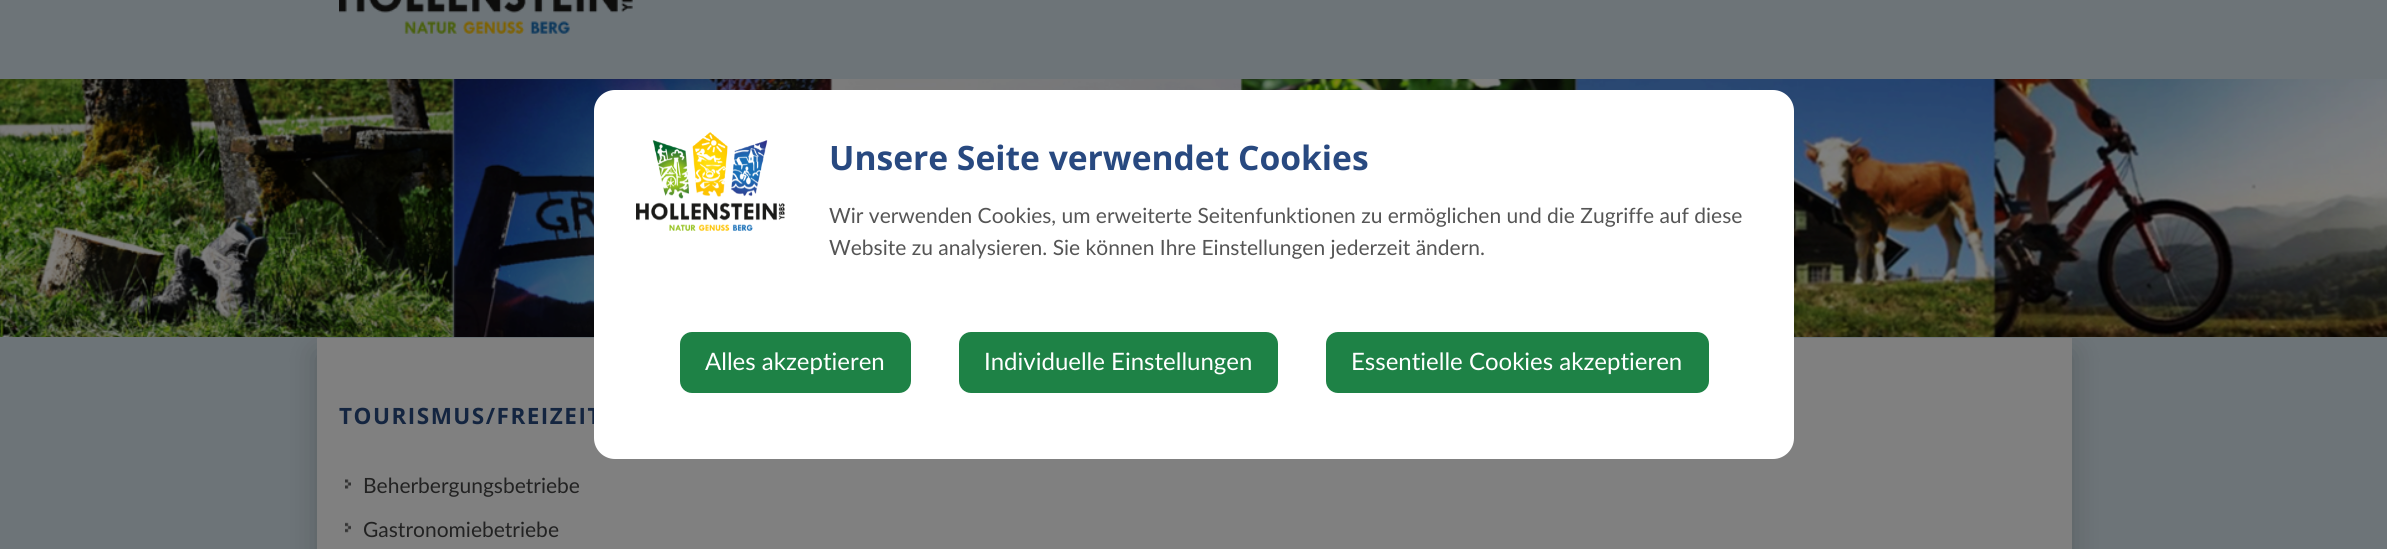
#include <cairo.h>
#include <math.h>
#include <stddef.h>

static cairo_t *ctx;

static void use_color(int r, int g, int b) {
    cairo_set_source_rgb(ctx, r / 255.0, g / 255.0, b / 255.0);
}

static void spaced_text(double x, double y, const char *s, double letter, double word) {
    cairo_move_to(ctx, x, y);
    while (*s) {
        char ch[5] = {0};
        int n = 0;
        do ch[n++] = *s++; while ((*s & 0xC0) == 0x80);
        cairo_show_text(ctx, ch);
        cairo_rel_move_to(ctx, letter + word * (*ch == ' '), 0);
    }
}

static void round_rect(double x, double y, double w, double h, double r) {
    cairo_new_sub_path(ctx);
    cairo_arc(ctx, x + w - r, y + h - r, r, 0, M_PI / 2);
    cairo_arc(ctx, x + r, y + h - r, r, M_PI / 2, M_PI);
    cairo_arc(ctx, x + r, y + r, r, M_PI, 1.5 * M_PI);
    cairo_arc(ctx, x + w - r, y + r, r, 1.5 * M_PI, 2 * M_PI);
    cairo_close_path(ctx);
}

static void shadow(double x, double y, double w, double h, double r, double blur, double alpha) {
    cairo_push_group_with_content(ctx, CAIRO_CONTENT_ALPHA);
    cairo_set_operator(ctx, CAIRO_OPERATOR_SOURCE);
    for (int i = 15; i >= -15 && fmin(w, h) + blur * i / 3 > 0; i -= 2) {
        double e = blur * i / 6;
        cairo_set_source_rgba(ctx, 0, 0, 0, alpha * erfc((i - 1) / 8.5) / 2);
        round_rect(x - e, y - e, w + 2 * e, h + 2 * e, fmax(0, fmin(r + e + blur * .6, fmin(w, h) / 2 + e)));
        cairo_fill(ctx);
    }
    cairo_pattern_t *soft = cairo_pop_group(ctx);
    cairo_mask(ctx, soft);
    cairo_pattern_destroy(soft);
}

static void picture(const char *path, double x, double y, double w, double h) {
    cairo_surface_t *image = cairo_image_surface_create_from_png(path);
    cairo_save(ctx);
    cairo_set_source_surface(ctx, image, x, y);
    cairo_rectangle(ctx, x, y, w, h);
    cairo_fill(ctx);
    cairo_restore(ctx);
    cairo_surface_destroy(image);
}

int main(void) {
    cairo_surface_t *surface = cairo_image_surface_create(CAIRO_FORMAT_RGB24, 2387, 549);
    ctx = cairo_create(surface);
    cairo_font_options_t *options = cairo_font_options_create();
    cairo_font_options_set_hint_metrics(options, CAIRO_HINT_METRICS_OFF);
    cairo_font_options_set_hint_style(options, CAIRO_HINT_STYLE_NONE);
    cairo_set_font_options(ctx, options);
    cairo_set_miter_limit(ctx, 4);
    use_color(109, 116, 120);
    cairo_paint(ctx);
    picture("img3.png", 0, 79, 2387, 258);
    cairo_save(ctx);
    cairo_rectangle(ctx, 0, 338, 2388, 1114);
    cairo_clip(ctx);
    use_color(0, 0, 0);
    shadow(317, 353, 1755, 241, 0, 15, 0.2);
    cairo_restore(ctx);
    use_color(128, 128, 128);
    cairo_rectangle(ctx, 317, 338, 1755, 211);
    cairo_fill(ctx);
    cairo_select_font_face(ctx, "Open Sans", CAIRO_FONT_SLANT_NORMAL, CAIRO_FONT_WEIGHT_BOLD);
    cairo_set_font_size(ctx, 22.5);
    use_color(20, 37, 64);
    spaced_text(339, 424, "TOURISMUS/FREIZEIT", 1.5, 0);
    use_color(255, 255, 255);
    round_rect(594, 90, 1200, 369, 21);
    cairo_fill(ctx);
    picture("img1.png", 636, 132, 149, 99);
    cairo_set_font_size(ctx, 33.6);
    use_color(40, 73, 128);
    cairo_move_to(ctx, 829, 170);
    cairo_show_text(ctx, "Unsere Seite verwendet Cookies");
    cairo_select_font_face(ctx, "Lato", CAIRO_FONT_SLANT_NORMAL, CAIRO_FONT_WEIGHT_NORMAL);
    cairo_set_font_size(ctx, 21);
    use_color(85, 85, 85);
    cairo_move_to(ctx, 829, 223);
    cairo_show_text(ctx, "Wir verwenden Cookies, um erweiterte Seitenfunktionen zu ermöglichen und die Zugriffe auf diese");
    cairo_move_to(ctx, 829, 255);
    cairo_show_text(ctx, "Website zu analysieren. Sie können Ihre Einstellungen jederzeit ändern.");
    use_color(30, 130, 70);
    round_rect(680, 332, 231, 61, 12);
    cairo_fill(ctx);
    cairo_set_font_size(ctx, 24);
    use_color(255, 255, 255);
    cairo_move_to(ctx, 705, 370);
    cairo_show_text(ctx, "Alles akzeptieren");
    use_color(30, 130, 70);
    round_rect(959, 332, 319, 61, 12);
    cairo_fill(ctx);
    use_color(255, 255, 255);
    cairo_move_to(ctx, 984, 370);
    cairo_show_text(ctx, "Individuelle Einstellungen");
    use_color(30, 130, 70);
    round_rect(1326, 332, 383, 61, 12);
    cairo_fill(ctx);
    use_color(255, 255, 255);
    cairo_move_to(ctx, 1351, 370);
    cairo_show_text(ctx, "Essentielle Cookies akzeptieren");
    picture("img2.png", 339, 0, 294, 34);
    picture("img4.png", 345, 479, 6, 10);
    cairo_set_font_size(ctx, 21);
    use_color(34, 34, 34);
    cairo_move_to(ctx, 363, 493);
    cairo_show_text(ctx, "Beherbergungsbetriebe");
    picture("img5.png", 345, 522, 6, 11);
    cairo_move_to(ctx, 363, 537);
    cairo_show_text(ctx, "Gastronomiebetriebe");
    cairo_surface_write_to_png(surface, "result.png");
    cairo_font_options_destroy(options);
    cairo_destroy(ctx);
    cairo_surface_destroy(surface);
    return 0;
}
